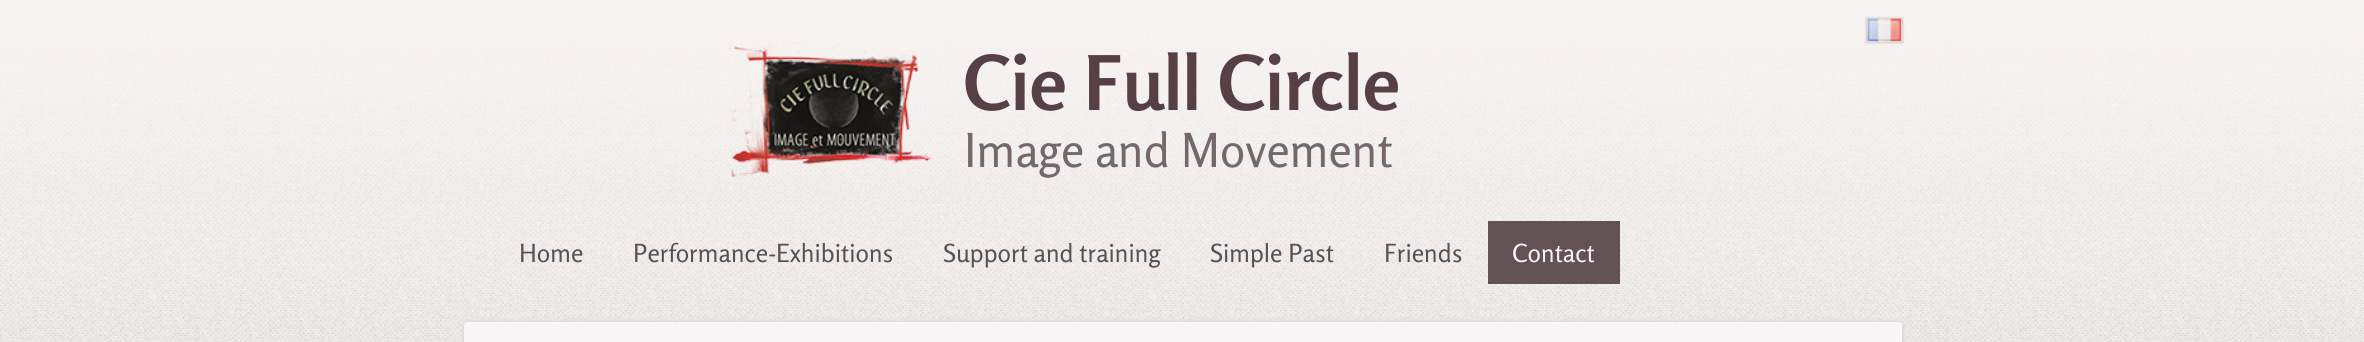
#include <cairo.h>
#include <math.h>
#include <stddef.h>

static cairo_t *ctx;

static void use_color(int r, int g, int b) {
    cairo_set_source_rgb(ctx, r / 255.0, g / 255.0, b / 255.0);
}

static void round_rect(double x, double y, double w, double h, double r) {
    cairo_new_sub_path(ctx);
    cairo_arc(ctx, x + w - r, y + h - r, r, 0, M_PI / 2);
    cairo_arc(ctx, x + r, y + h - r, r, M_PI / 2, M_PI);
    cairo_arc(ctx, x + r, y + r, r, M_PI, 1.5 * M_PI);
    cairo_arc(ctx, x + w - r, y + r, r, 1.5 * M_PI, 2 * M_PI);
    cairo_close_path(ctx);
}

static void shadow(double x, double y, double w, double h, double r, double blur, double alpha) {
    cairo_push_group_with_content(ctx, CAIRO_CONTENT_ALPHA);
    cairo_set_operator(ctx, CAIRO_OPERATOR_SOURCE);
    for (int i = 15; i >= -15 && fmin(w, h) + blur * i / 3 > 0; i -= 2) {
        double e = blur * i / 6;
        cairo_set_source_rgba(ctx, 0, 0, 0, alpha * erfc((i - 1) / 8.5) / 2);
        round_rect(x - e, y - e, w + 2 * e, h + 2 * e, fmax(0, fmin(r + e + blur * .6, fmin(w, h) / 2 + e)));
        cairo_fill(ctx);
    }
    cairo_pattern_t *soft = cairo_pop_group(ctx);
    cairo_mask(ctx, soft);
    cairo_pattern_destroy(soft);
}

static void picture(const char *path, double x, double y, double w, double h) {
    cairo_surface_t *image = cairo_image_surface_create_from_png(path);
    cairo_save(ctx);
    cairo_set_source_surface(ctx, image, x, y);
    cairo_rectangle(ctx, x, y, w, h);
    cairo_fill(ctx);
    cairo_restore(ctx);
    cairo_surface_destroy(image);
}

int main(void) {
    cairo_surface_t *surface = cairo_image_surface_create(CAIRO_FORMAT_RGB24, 2364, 342);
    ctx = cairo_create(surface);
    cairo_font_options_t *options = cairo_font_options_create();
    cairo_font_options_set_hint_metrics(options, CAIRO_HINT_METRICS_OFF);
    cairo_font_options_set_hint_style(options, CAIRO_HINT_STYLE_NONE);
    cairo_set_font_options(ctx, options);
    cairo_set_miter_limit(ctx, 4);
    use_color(255, 255, 255);
    cairo_paint(ctx);
    picture("img1.png", 0, 0, 2364, 342);
    cairo_save(ctx);
    cairo_set_fill_rule(ctx, CAIRO_FILL_RULE_EVEN_ODD);
    cairo_new_path(ctx);
    cairo_move_to(ctx, 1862, 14);
    cairo_line_to(ctx, 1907, 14);
    cairo_line_to(ctx, 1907, 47);
    cairo_line_to(ctx, 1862, 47);
    cairo_close_path(ctx);
    cairo_move_to(ctx, 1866, 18);
    cairo_line_to(ctx, 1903, 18);
    cairo_line_to(ctx, 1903, 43);
    cairo_line_to(ctx, 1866, 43);
    cairo_close_path(ctx);
    cairo_clip(ctx);
    use_color(184, 171, 175);
    shadow(1866, 18, 37, 25, 0, 1, 0.6);
    cairo_restore(ctx);
    cairo_rectangle(ctx, 1866.5, 18.5, 36, 24);
    cairo_set_source_rgba(ctx, 0.8, 0.761, 0.769, 0.6);
    cairo_set_line_width(ctx, 1);
    cairo_stroke(ctx);
    picture("img2.png", 1867, 18, 35, 24);
    picture("img3.png", 730, 42, 203, 135);
    cairo_select_font_face(ctx, "Rosario", CAIRO_FONT_SLANT_NORMAL, CAIRO_FONT_WEIGHT_BOLD);
    cairo_set_font_size(ctx, 75);
    use_color(86, 64, 68);
    cairo_move_to(ctx, 964, 110);
    cairo_show_text(ctx, "Cie Full Circle");
    cairo_select_font_face(ctx, "Rosario", CAIRO_FONT_SLANT_NORMAL, CAIRO_FONT_WEIGHT_NORMAL);
    cairo_set_font_size(ctx, 46.9);
    use_color(116, 104, 108);
    cairo_move_to(ctx, 964, 167);
    cairo_show_text(ctx, "Image and Movement");
    cairo_set_font_size(ctx, 25);
    use_color(89, 80, 83);
    cairo_move_to(ctx, 519, 262);
    cairo_show_text(ctx, "Home");
    cairo_move_to(ctx, 633, 262);
    cairo_show_text(ctx, "Performance-Exhibitions");
    cairo_move_to(ctx, 943, 262);
    cairo_show_text(ctx, "Support and training");
    cairo_move_to(ctx, 1210, 262);
    cairo_show_text(ctx, "Simple Past");
    cairo_move_to(ctx, 1384, 262);
    cairo_show_text(ctx, "Friends");
    use_color(98, 82, 85);
    cairo_rectangle(ctx, 1488, 221, 132, 63);
    cairo_fill(ctx);
    use_color(250, 245, 247);
    cairo_move_to(ctx, 1512, 262);
    cairo_show_text(ctx, "Contact");
    use_color(224, 220, 221);
    shadow(463, 321, 1440, 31, 4, 2, 1);
    use_color(204, 194, 196);
    shadow(463, 323, 1440, 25, 4, 0.5, 1);
    use_color(250, 245, 247);
    round_rect(463.5, 321.5, 1439, 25, 3.5);
    cairo_fill_preserve(ctx);
    use_color(224, 220, 221);
    cairo_stroke(ctx);
    cairo_surface_write_to_png(surface, "result.png");
    cairo_font_options_destroy(options);
    cairo_destroy(ctx);
    cairo_surface_destroy(surface);
    return 0;
}
